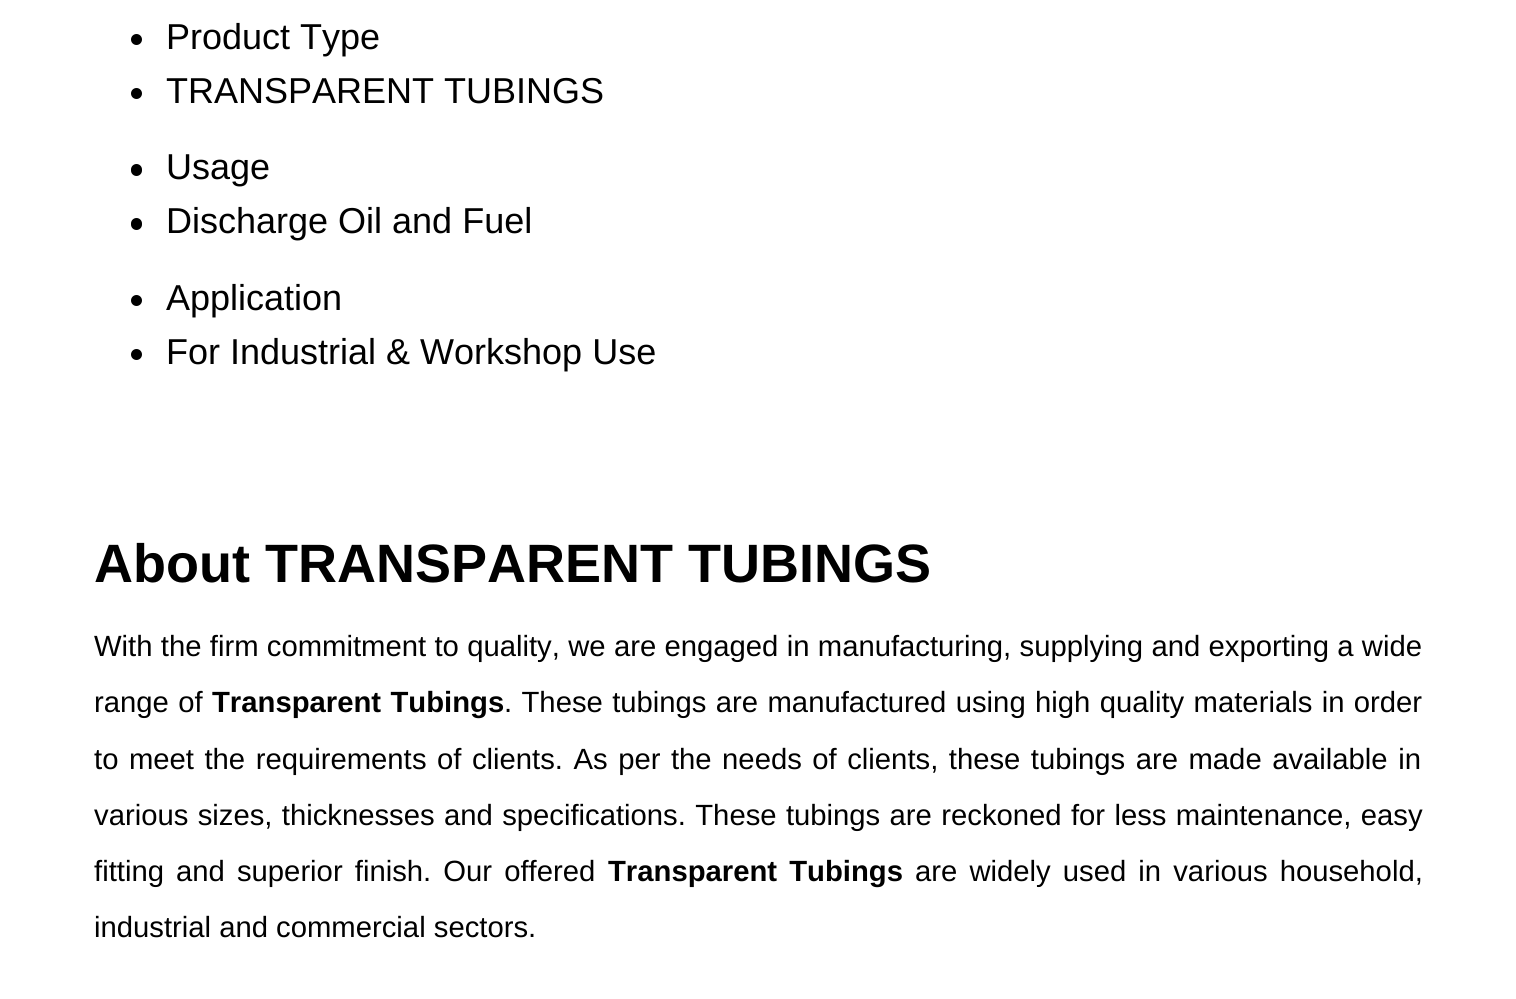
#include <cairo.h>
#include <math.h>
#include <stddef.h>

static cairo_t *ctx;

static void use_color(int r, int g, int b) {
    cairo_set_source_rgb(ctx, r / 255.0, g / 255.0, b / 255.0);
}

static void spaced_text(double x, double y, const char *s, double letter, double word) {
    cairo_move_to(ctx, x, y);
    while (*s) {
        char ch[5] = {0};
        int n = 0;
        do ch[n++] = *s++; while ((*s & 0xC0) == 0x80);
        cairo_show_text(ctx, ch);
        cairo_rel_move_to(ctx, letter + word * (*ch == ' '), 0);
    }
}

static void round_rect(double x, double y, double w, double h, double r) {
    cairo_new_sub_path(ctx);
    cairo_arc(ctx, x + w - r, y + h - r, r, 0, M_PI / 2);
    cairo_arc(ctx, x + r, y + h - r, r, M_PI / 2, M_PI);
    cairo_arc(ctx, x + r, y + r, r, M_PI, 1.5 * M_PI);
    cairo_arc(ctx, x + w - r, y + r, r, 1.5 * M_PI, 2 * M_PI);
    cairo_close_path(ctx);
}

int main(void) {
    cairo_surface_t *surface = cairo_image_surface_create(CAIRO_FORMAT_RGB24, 1516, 999);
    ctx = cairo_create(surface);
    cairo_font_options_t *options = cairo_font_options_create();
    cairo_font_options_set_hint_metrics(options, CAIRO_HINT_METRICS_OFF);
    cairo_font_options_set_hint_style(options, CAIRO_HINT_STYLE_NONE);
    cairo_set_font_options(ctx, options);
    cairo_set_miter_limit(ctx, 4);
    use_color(255, 255, 255);
    cairo_paint(ctx);
    use_color(0, 0, 0);
    cairo_arc(ctx, 136.5, 39.5, 5.5, 0, 2 * M_PI);
    cairo_fill(ctx);
    cairo_select_font_face(ctx, "Liberation Sans", CAIRO_FONT_SLANT_NORMAL, CAIRO_FONT_WEIGHT_NORMAL);
    cairo_set_font_size(ctx, 36);
    cairo_move_to(ctx, 166, 49);
    cairo_show_text(ctx, "Product Type");
    cairo_new_path(ctx);
    cairo_arc(ctx, 136.5, 93.5, 5.5, 0, 2 * M_PI);
    cairo_fill(ctx);
    cairo_move_to(ctx, 166, 103);
    cairo_show_text(ctx, "TRANSPARENT TUBINGS");
    round_rect(131, 164, 11, 12, 5.5);
    cairo_fill(ctx);
    cairo_move_to(ctx, 166, 179);
    cairo_show_text(ctx, "Usage");
    round_rect(131, 218, 11, 12, 5.5);
    cairo_fill(ctx);
    cairo_move_to(ctx, 166, 233);
    cairo_show_text(ctx, "Discharge Oil and Fuel");
    cairo_new_path(ctx);
    cairo_arc(ctx, 136.5, 300.5, 5.5, 0, 2 * M_PI);
    cairo_fill(ctx);
    cairo_move_to(ctx, 166, 310);
    cairo_show_text(ctx, "Application");
    cairo_new_path(ctx);
    cairo_arc(ctx, 136.5, 354.5, 5.5, 0, 2 * M_PI);
    cairo_fill(ctx);
    cairo_move_to(ctx, 166, 364);
    cairo_show_text(ctx, "For Industrial & Workshop Use");
    cairo_select_font_face(ctx, "Liberation Sans", CAIRO_FONT_SLANT_NORMAL, CAIRO_FONT_WEIGHT_BOLD);
    cairo_set_font_size(ctx, 54);
    cairo_move_to(ctx, 94, 582);
    cairo_show_text(ctx, "About TRANSPARENT TUBINGS");
    cairo_select_font_face(ctx, "Liberation Sans", CAIRO_FONT_SLANT_NORMAL, CAIRO_FONT_WEIGHT_NORMAL);
    cairo_set_font_size(ctx, 29.25);
    spaced_text(94, 656, "With the firm commitment to quality, we are engaged in manufacturing, supplying and exporting a wide", 0, 0.2);
    spaced_text(94, 712, "range of", 0, 1.25);
    cairo_select_font_face(ctx, "Liberation Sans", CAIRO_FONT_SLANT_NORMAL, CAIRO_FONT_WEIGHT_BOLD);
    spaced_text(212, 712, "Transparent Tubings", 0, 1.25);
    cairo_select_font_face(ctx, "Liberation Sans", CAIRO_FONT_SLANT_NORMAL, CAIRO_FONT_WEIGHT_NORMAL);
    spaced_text(504, 712, ". These tubings are manufactured using high quality materials in order", 0, 1.25);
    spaced_text(94, 769, "to meet the requirement", 0, 2.4);
    cairo_move_to(ctx, 412, 769);
    cairo_show_text(ctx, "s");
    spaced_text(437, 769, "of clients. As per the needs of clients, these tubings are made available in", 0, 2.4);
    spaced_text(94, 825, "various sizes, thicknesses and specifications. These tubings are reckoned for less maintenance, easy", 0, 1.25);
    spaced_text(94, 881, "fitting and superior finish. Our offered", 0, 4);
    cairo_select_font_face(ctx, "Liberation Sans", CAIRO_FONT_SLANT_NORMAL, CAIRO_FONT_WEIGHT_BOLD);
    spaced_text(608, 881, "Transparent Tubings", 0, 4);
    cairo_select_font_face(ctx, "Liberation Sans", CAIRO_FONT_SLANT_NORMAL, CAIRO_FONT_WEIGHT_NORMAL);
    spaced_text(915, 881, "are widely used in various household,", 0, 4);
    cairo_move_to(ctx, 94, 937);
    cairo_show_text(ctx, "industrial and commercial sectors.");
    cairo_surface_write_to_png(surface, "result.png");
    cairo_font_options_destroy(options);
    cairo_destroy(ctx);
    cairo_surface_destroy(surface);
    return 0;
}
